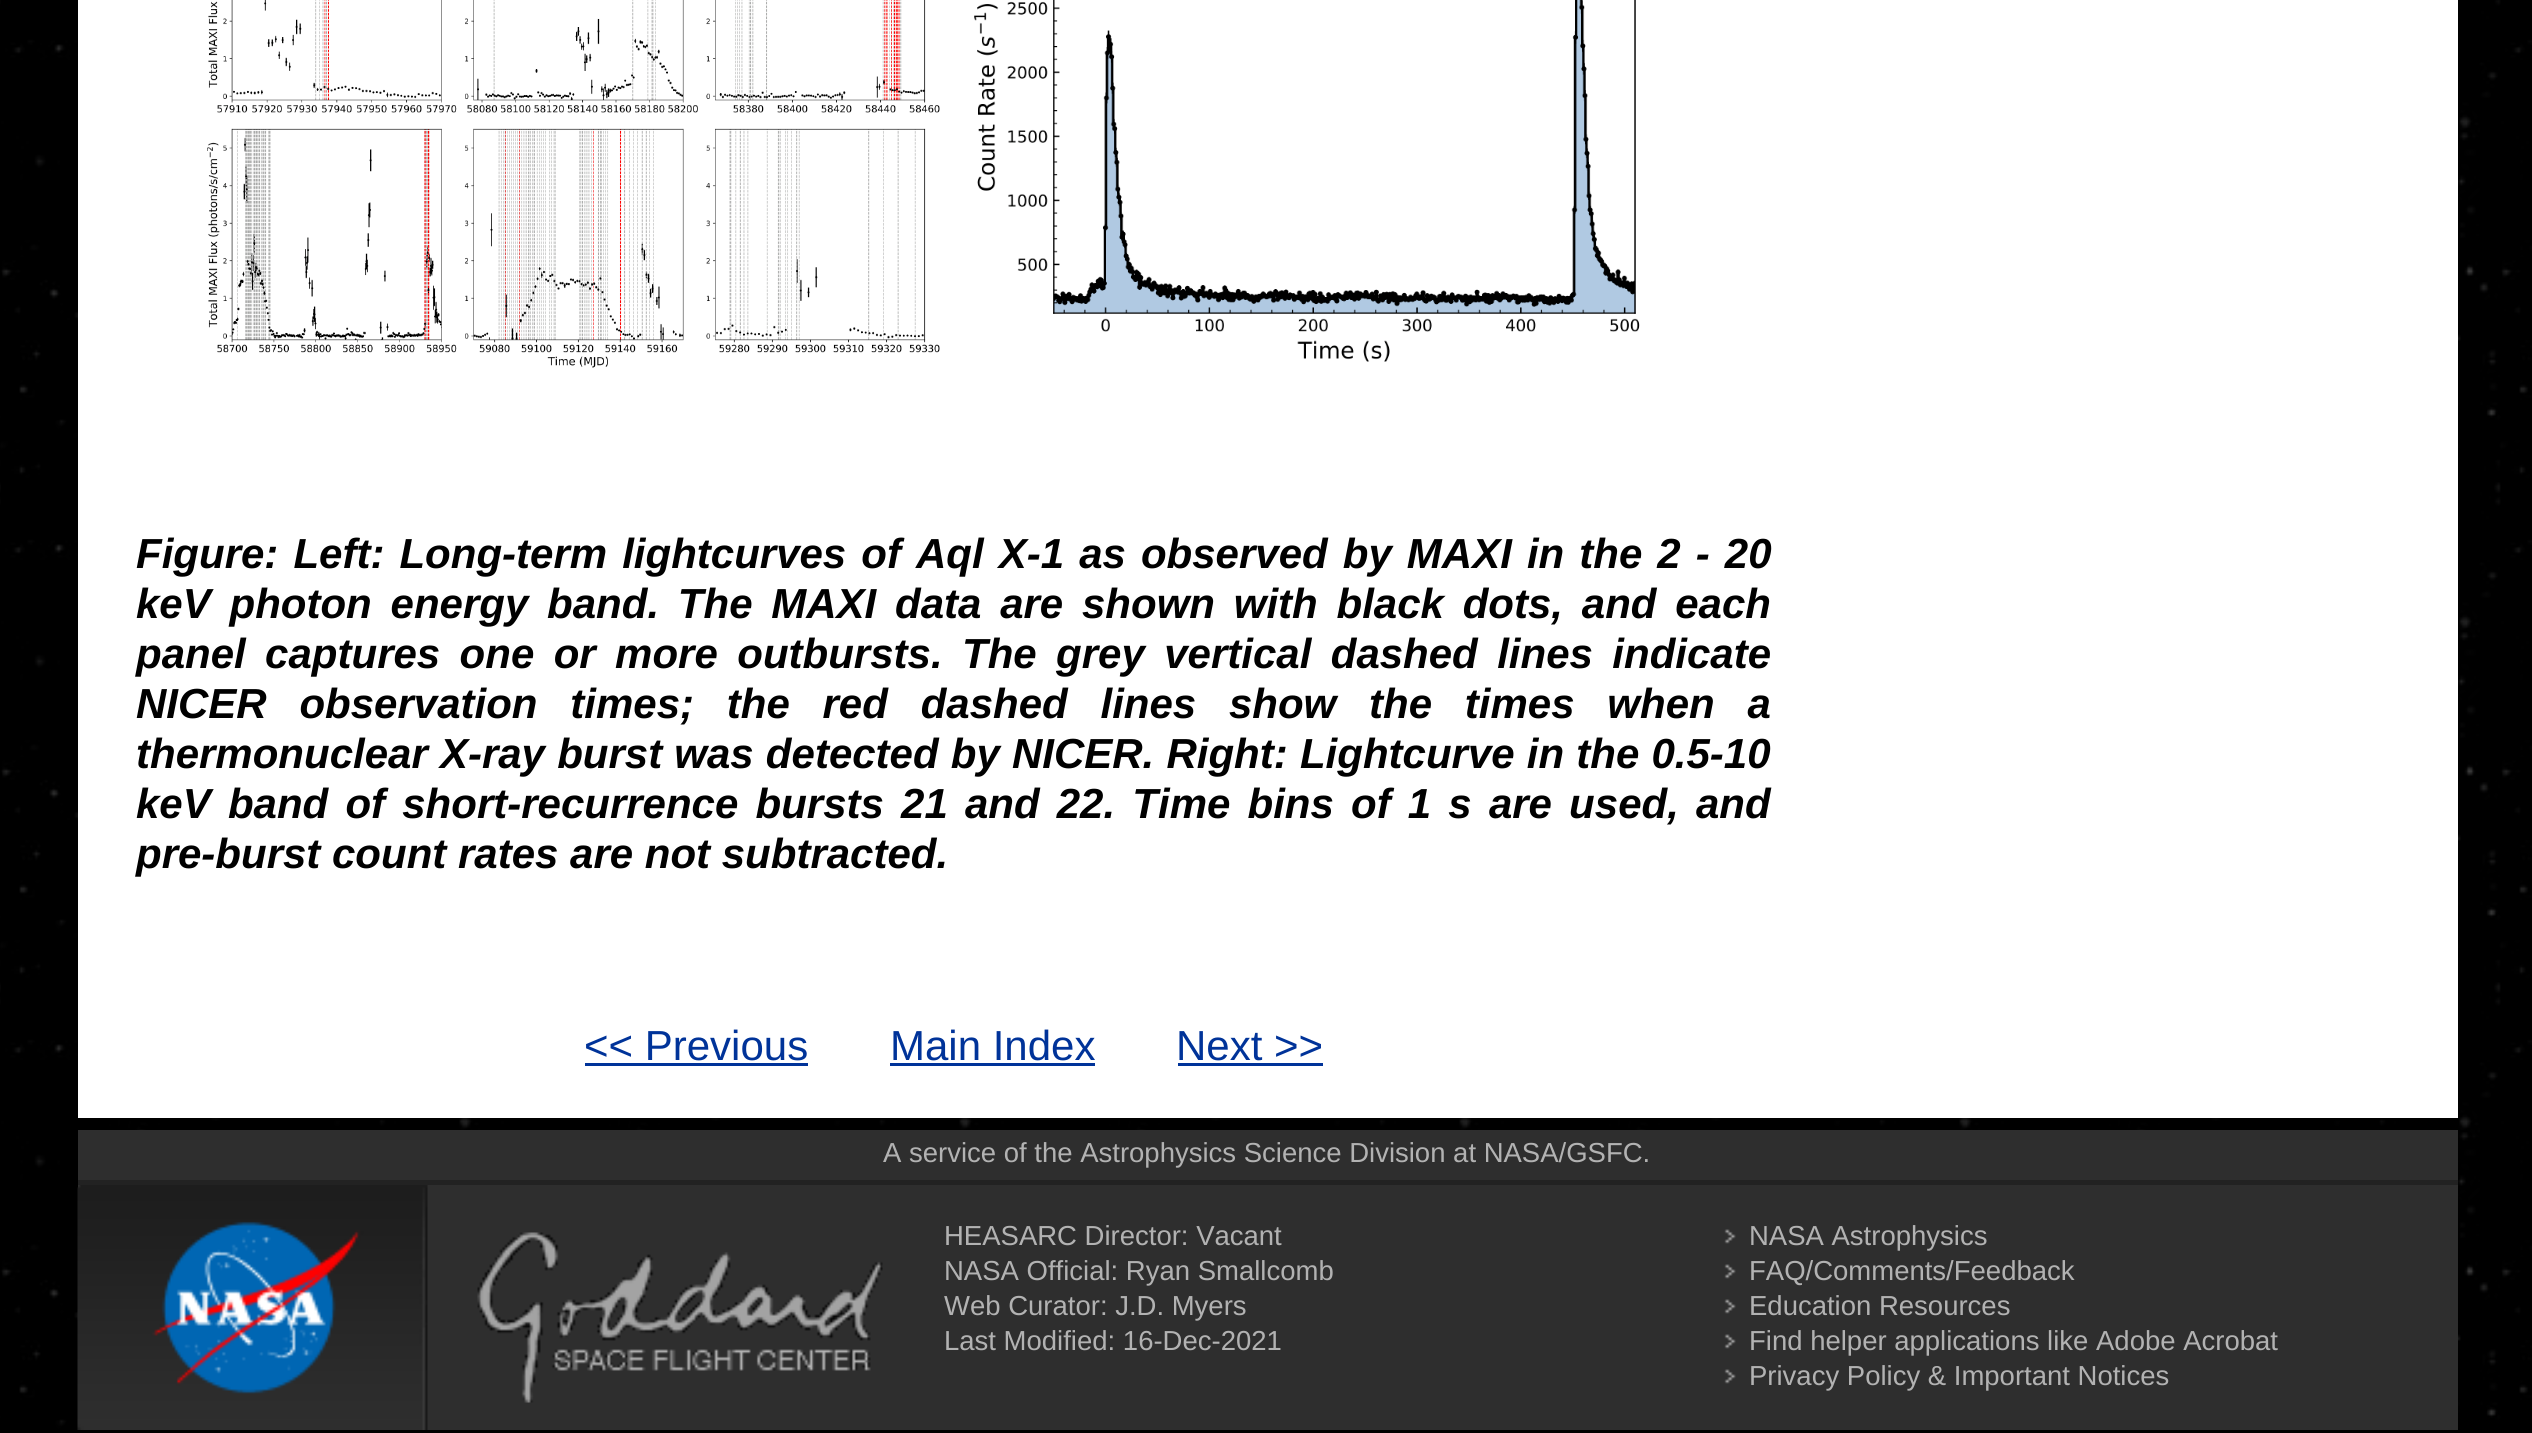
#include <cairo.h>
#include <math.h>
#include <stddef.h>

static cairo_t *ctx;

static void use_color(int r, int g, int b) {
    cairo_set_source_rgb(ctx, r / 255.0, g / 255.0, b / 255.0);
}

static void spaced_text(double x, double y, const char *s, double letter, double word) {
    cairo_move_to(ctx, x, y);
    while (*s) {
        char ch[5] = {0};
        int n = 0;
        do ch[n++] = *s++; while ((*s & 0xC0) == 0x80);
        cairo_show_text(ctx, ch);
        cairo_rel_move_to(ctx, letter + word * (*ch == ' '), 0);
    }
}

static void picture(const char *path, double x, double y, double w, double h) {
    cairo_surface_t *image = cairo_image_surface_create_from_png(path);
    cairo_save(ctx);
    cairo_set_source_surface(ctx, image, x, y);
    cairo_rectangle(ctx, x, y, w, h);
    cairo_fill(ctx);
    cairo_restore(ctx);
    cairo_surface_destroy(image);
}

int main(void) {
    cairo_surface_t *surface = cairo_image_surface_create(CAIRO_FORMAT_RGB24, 2532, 1433);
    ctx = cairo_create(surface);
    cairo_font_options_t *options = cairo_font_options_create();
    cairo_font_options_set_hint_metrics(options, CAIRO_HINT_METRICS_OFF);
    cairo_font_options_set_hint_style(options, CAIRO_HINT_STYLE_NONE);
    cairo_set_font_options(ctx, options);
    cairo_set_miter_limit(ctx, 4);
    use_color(255, 255, 255);
    cairo_paint(ctx);
    picture("img1.png", 0, 0, 2532, 1433);
    use_color(255, 255, 255);
    cairo_rectangle(ctx, 78, 0, 2380, 1118);
    cairo_fill(ctx);
    picture("img2.png", 207, 0, 733, 368);
    picture("img3.png", 974, 0, 666, 362);
    cairo_select_font_face(ctx, "Liberation Sans", CAIRO_FONT_SLANT_ITALIC, CAIRO_FONT_WEIGHT_BOLD);
    cairo_set_font_size(ctx, 42);
    use_color(0, 0, 0);
    spaced_text(136, 568, "Figure: Left: Long-term lightcurves of Aql X-1 as observed by MAXI in the 2 - 20", 0, 3.4);
    spaced_text(136, 618, "keV photon energy band. The MAXI data are shown with black dots, and each", 0, 7.1);
    spaced_text(136, 668, "panel captures one or more outbursts. The grey vertical dashed lines indicate", 0, 7.75);
    spaced_text(136, 718, "NICER observation times; the red dashed lines show the times when a", 0, 21.1);
    spaced_text(136, 768, "thermonuclear X-ray burst was detected by NICER. Right: Lightcurve in the 0.5-10", 0, 0.5);
    spaced_text(136, 818, "keV band of short-recurrence bursts 21 and 22. Time bins of 1 s are used, and", 0, 5.5);
    cairo_move_to(ctx, 136, 868);
    cairo_show_text(ctx, "pre-burst count rates are not subtracted.");
    cairo_select_font_face(ctx, "Liberation Sans", CAIRO_FONT_SLANT_NORMAL, CAIRO_FONT_WEIGHT_NORMAL);
    use_color(0, 51, 153);
    cairo_move_to(ctx, 584, 1060);
    cairo_show_text(ctx, "<< Previous");
    cairo_rectangle(ctx, 585, 1063, 223, 3);
    cairo_fill(ctx);
    cairo_move_to(ctx, 890, 1060);
    cairo_show_text(ctx, "Main Index");
    cairo_rectangle(ctx, 890, 1063, 205, 3);
    cairo_fill(ctx);
    cairo_move_to(ctx, 1176, 1060);
    cairo_show_text(ctx, "Next >>");
    cairo_rectangle(ctx, 1178, 1063, 145, 3);
    cairo_fill(ctx);
    use_color(46, 46, 46);
    cairo_rectangle(ctx, 78, 1130, 2380, 50);
    cairo_fill(ctx);
    cairo_set_font_size(ctx, 27.5);
    use_color(178, 178, 178);
    cairo_move_to(ctx, 883, 1162);
    cairo_show_text(ctx, "A service of the Astrophysics Science Division at NASA/GSFC.");
    use_color(46, 46, 46);
    cairo_rectangle(ctx, 78, 1185, 2380, 245);
    cairo_fill(ctx);
    use_color(34, 34, 34);
    cairo_rectangle(ctx, 78, 1180, 2380, 5);
    cairo_fill(ctx);
    picture("img4.png", 77, 1185, 351, 245);
    picture("img5.png", 477, 1232, 406, 171);
    use_color(178, 178, 178);
    cairo_move_to(ctx, 944, 1245);
    cairo_show_text(ctx, "HEASARC Director: Vacant");
    cairo_move_to(ctx, 944, 1280);
    cairo_show_text(ctx, "NASA Official: Ryan Smallcomb");
    cairo_move_to(ctx, 944, 1315);
    cairo_show_text(ctx, "Web Curator: J.D. Myers");
    cairo_move_to(ctx, 944, 1350);
    cairo_show_text(ctx, "Last Modified: 16-Dec-2021");
    picture("img6.png", 1724, 1229, 12, 15);
    cairo_move_to(ctx, 1749, 1245);
    cairo_show_text(ctx, "NASA Astrophysics");
    picture("img6.png", 1724, 1264, 12, 15);
    cairo_move_to(ctx, 1749, 1280);
    cairo_show_text(ctx, "FAQ/Comments/Feedback");
    picture("img6.png", 1724, 1299, 12, 15);
    cairo_move_to(ctx, 1749, 1315);
    cairo_show_text(ctx, "Education Resources");
    picture("img6.png", 1724, 1334, 12, 15);
    cairo_move_to(ctx, 1749, 1350);
    cairo_show_text(ctx, "Find helper applications like Adobe Acrobat");
    picture("img6.png", 1724, 1369, 12, 15);
    cairo_move_to(ctx, 1749, 1385);
    cairo_show_text(ctx, "Privacy Policy & Important Notices");
    cairo_surface_write_to_png(surface, "result.png");
    cairo_font_options_destroy(options);
    cairo_destroy(ctx);
    cairo_surface_destroy(surface);
    return 0;
}
